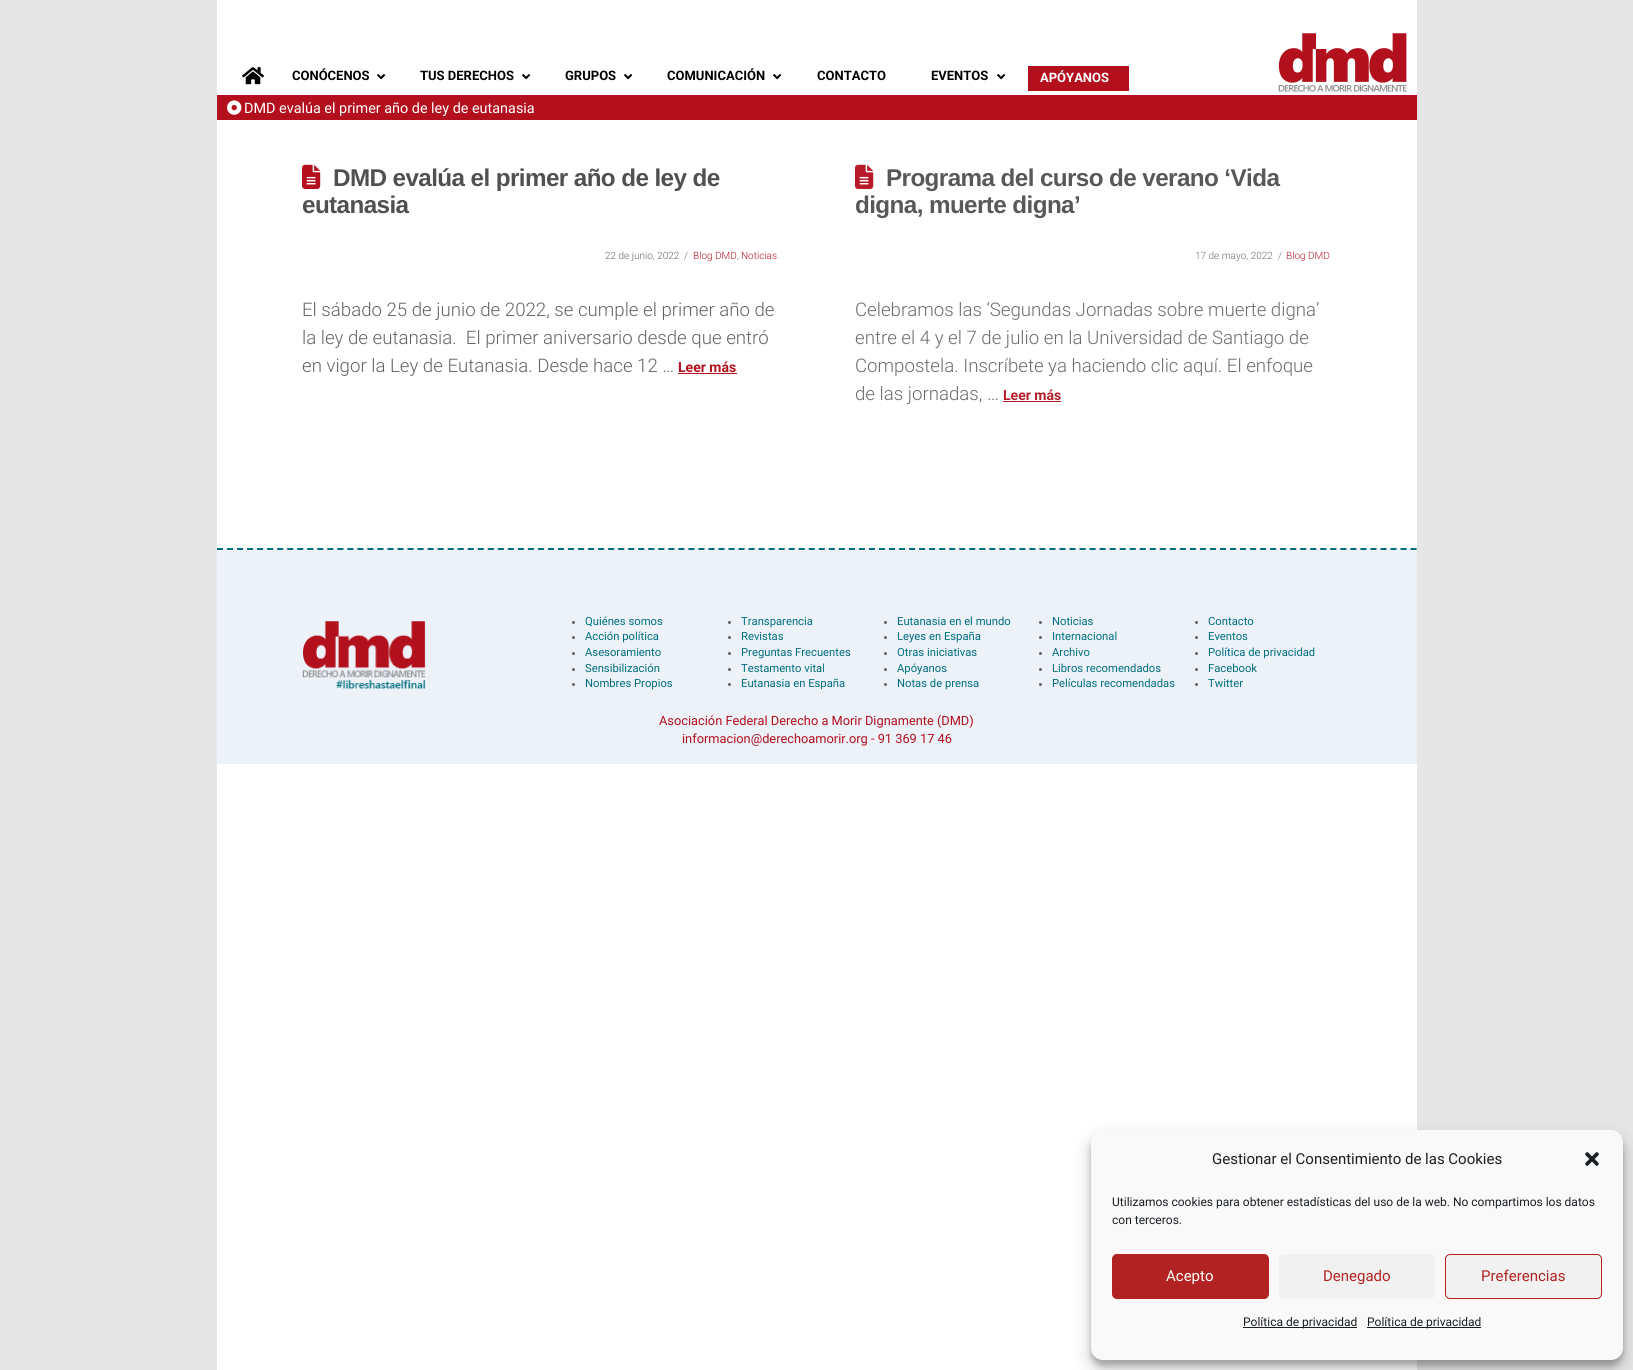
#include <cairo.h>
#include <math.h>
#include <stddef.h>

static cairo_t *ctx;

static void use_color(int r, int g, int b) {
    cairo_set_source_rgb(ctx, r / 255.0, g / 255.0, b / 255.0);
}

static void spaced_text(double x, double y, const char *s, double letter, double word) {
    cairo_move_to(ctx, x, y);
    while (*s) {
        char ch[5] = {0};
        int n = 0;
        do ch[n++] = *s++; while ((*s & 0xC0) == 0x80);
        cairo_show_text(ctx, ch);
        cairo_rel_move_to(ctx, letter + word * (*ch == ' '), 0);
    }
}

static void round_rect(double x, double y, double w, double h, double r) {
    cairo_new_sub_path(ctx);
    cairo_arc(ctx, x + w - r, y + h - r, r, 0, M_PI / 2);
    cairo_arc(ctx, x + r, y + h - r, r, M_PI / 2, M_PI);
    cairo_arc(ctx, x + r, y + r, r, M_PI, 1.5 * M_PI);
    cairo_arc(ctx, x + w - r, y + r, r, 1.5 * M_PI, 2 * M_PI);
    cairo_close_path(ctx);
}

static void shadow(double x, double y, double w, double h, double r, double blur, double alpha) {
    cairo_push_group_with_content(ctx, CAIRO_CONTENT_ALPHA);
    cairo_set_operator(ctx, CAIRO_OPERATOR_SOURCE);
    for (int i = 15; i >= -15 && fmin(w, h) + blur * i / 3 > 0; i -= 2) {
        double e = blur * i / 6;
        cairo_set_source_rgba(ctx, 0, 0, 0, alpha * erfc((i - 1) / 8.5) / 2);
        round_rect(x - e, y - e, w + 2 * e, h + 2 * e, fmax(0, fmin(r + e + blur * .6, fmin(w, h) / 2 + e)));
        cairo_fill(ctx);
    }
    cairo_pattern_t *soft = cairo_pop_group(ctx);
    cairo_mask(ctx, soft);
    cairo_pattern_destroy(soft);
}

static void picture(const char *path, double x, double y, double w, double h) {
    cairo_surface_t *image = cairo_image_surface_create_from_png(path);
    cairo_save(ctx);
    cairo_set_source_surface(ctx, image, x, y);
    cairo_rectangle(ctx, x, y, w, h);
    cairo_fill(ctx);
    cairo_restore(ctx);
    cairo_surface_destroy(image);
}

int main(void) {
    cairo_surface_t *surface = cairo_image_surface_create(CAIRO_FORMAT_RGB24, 1633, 1370);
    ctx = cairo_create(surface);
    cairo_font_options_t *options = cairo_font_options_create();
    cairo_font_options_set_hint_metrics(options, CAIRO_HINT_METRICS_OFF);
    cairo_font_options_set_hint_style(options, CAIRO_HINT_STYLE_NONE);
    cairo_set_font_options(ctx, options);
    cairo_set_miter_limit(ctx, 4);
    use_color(230, 230, 230);
    cairo_paint(ctx);
    use_color(255, 255, 255);
    cairo_rectangle(ctx, 217, 0, 1200, 1370);
    cairo_fill(ctx);
    use_color(190, 10, 39);
    cairo_rectangle(ctx, 217, 95, 1200, 1);
    cairo_fill(ctx);
    picture("img1.png", 242, 67, 22, 18);
    cairo_select_font_face(ctx, "Roboto", CAIRO_FONT_SLANT_NORMAL, CAIRO_FONT_WEIGHT_BOLD);
    cairo_set_font_size(ctx, 13);
    use_color(0, 0, 0);
    cairo_move_to(ctx, 292, 80);
    cairo_show_text(ctx, "CONÓCENOS");
    picture("img2.png", 377, 74, 9, 6);
    cairo_move_to(ctx, 420, 80);
    cairo_show_text(ctx, "TUS DERECHOS");
    picture("img2.png", 522, 74, 9, 6);
    cairo_move_to(ctx, 565, 80);
    cairo_show_text(ctx, "GRUPOS");
    picture("img2.png", 624, 74, 9, 6);
    cairo_move_to(ctx, 667, 80);
    cairo_show_text(ctx, "COMUNICACIÓN");
    picture("img2.png", 773, 74, 9, 6);
    cairo_move_to(ctx, 817, 80);
    cairo_show_text(ctx, "CONTACTO");
    cairo_move_to(ctx, 931, 80);
    cairo_show_text(ctx, "EVENTOS");
    picture("img2.png", 997, 74, 9, 6);
    use_color(179, 15, 29);
    cairo_rectangle(ctx, 1028, 66, 101, 25);
    cairo_fill(ctx);
    use_color(255, 255, 255);
    cairo_move_to(ctx, 1040, 82);
    cairo_show_text(ctx, "APÓYANOS");
    picture("img3.png", 1278, 33, 129, 59);
    use_color(179, 15, 29);
    cairo_rectangle(ctx, 217, 96, 1200, 24);
    cairo_fill(ctx);
    picture("img4.png", 227, 100, 15, 15);
    cairo_select_font_face(ctx, "Roboto", CAIRO_FONT_SLANT_NORMAL, CAIRO_FONT_WEIGHT_NORMAL);
    cairo_set_font_size(ctx, 14.4);
    use_color(255, 255, 255);
    cairo_move_to(ctx, 244, 113);
    cairo_show_text(ctx, "DMD evalúa el primer año de ley de eutanasia");
    picture("img5.png", 302, 164, 19, 25);
    cairo_select_font_face(ctx, "Liberation Sans", CAIRO_FONT_SLANT_NORMAL, CAIRO_FONT_WEIGHT_BOLD);
    cairo_set_font_size(ctx, 24.25);
    use_color(80, 80, 80);
    spaced_text(333, 186, "DMD evalúa el primer año de ley de", -0.6, 0);
    spaced_text(302, 213, "eutanasia", -0.6, 0);
    cairo_select_font_face(ctx, "Roboto Light", CAIRO_FONT_SLANT_NORMAL, CAIRO_FONT_WEIGHT_NORMAL);
    cairo_set_font_size(ctx, 10);
    use_color(100, 100, 100);
    cairo_move_to(ctx, 605, 259);
    cairo_show_text(ctx, "22 de junio, 2022");
    cairo_move_to(ctx, 684, 259);
    cairo_show_text(ctx, "/");
    use_color(179, 15, 29);
    cairo_move_to(ctx, 693, 259);
    cairo_show_text(ctx, "Blog DMD");
    use_color(100, 100, 100);
    cairo_move_to(ctx, 737, 259);
    cairo_show_text(ctx, ",");
    use_color(179, 15, 29);
    cairo_move_to(ctx, 741, 259);
    cairo_show_text(ctx, "Noticias");
    cairo_set_font_size(ctx, 18.65);
    use_color(100, 100, 100);
    cairo_move_to(ctx, 302, 316);
    cairo_show_text(ctx, "El sábado 25 de junio de 2022, se cumple el primer año de");
    cairo_move_to(ctx, 302, 344);
    cairo_show_text(ctx, "la ley de eutanasia.  El primer aniversario desde que entró");
    cairo_move_to(ctx, 302, 372);
    cairo_show_text(ctx, "en vigor la Ley de Eutanasia. Desde hace 12 …");
    cairo_select_font_face(ctx, "Roboto", CAIRO_FONT_SLANT_NORMAL, CAIRO_FONT_WEIGHT_BOLD);
    cairo_set_font_size(ctx, 14);
    use_color(179, 15, 29);
    cairo_move_to(ctx, 678, 372);
    cairo_show_text(ctx, "Leer más");
    cairo_rectangle(ctx, 678, 373, 59, 1);
    cairo_fill(ctx);
    picture("img6.png", 855, 164, 19, 25);
    cairo_select_font_face(ctx, "Liberation Sans", CAIRO_FONT_SLANT_NORMAL, CAIRO_FONT_WEIGHT_BOLD);
    cairo_set_font_size(ctx, 24.25);
    use_color(88, 88, 88);
    spaced_text(886, 186, "Programa del curso de verano ‘Vida", -0.6, 0);
    spaced_text(855, 213, "digna, muerte digna’", -0.6, 0);
    cairo_select_font_face(ctx, "Roboto Light", CAIRO_FONT_SLANT_NORMAL, CAIRO_FONT_WEIGHT_NORMAL);
    cairo_set_font_size(ctx, 10);
    use_color(108, 108, 108);
    cairo_move_to(ctx, 1195, 259);
    cairo_show_text(ctx, "17 de mayo, 2022");
    cairo_move_to(ctx, 1278, 259);
    cairo_show_text(ctx, "/");
    use_color(183, 27, 40);
    cairo_move_to(ctx, 1286, 259);
    cairo_show_text(ctx, "Blog DMD");
    cairo_set_font_size(ctx, 18.65);
    use_color(108, 108, 108);
    cairo_move_to(ctx, 855, 316);
    cairo_show_text(ctx, "Celebramos las ‘Segundas Jornadas sobre muerte digna’");
    cairo_move_to(ctx, 855, 344);
    cairo_show_text(ctx, "entre el 4 y el 7 de julio en la Universidad de Santiago de");
    cairo_move_to(ctx, 855, 372);
    cairo_show_text(ctx, "Compostela. Inscríbete ya haciendo clic aquí. El enfoque");
    cairo_move_to(ctx, 855, 400);
    cairo_show_text(ctx, "de las jornadas, …");
    cairo_select_font_face(ctx, "Roboto", CAIRO_FONT_SLANT_NORMAL, CAIRO_FONT_WEIGHT_BOLD);
    cairo_set_font_size(ctx, 14);
    use_color(183, 27, 40);
    cairo_move_to(ctx, 1003, 400);
    cairo_show_text(ctx, "Leer más");
    cairo_rectangle(ctx, 1003, 401, 58, 1);
    cairo_fill(ctx);
    use_color(237, 242, 249);
    cairo_rectangle(ctx, 217, 548, 1200, 216);
    cairo_fill(ctx);
    cairo_new_path(ctx);
    cairo_move_to(ctx, 217, 549);
    cairo_line_to(ctx, 1417, 549);
    use_color(0, 110, 127);
    cairo_set_dash(ctx, (double[]){6, 4.03}, 2, 0);
    cairo_stroke(ctx);
    picture("img7.png", 302, 621, 124, 69);
    use_color(100, 100, 100);
    cairo_arc(ctx, 573.5, 622.5, 1.5, 0, 2 * M_PI);
    cairo_fill(ctx);
    cairo_select_font_face(ctx, "Roboto", CAIRO_FONT_SLANT_NORMAL, CAIRO_FONT_WEIGHT_NORMAL);
    cairo_set_font_size(ctx, 11.25);
    use_color(0, 110, 127);
    cairo_move_to(ctx, 585, 625);
    cairo_show_text(ctx, "Quiénes somos");
    use_color(100, 100, 100);
    cairo_new_path(ctx);
    cairo_arc(ctx, 729.5, 622.5, 1.5, 0, 2 * M_PI);
    cairo_fill(ctx);
    use_color(0, 110, 127);
    cairo_move_to(ctx, 741, 625);
    cairo_show_text(ctx, "Transparencia");
    use_color(100, 100, 100);
    cairo_new_path(ctx);
    cairo_arc(ctx, 885.5, 622.5, 1.5, 0, 2 * M_PI);
    cairo_fill(ctx);
    use_color(0, 110, 127);
    cairo_move_to(ctx, 897, 625);
    cairo_show_text(ctx, "Eutanasia en el mundo");
    use_color(100, 100, 100);
    cairo_new_path(ctx);
    cairo_arc(ctx, 1040.5, 622.5, 1.5, 0, 2 * M_PI);
    cairo_fill(ctx);
    use_color(0, 110, 127);
    cairo_move_to(ctx, 1052, 625);
    cairo_show_text(ctx, "Noticias");
    use_color(100, 100, 100);
    cairo_new_path(ctx);
    cairo_arc(ctx, 1196.5, 622.5, 1.5, 0, 2 * M_PI);
    cairo_fill(ctx);
    use_color(0, 110, 127);
    cairo_move_to(ctx, 1208, 625);
    cairo_show_text(ctx, "Contacto");
    use_color(100, 100, 100);
    cairo_new_path(ctx);
    cairo_arc(ctx, 573.5, 637.5, 1.5, 0, 2 * M_PI);
    cairo_fill(ctx);
    use_color(0, 110, 127);
    cairo_move_to(ctx, 585, 640);
    cairo_show_text(ctx, "Acción política");
    use_color(100, 100, 100);
    cairo_new_path(ctx);
    cairo_arc(ctx, 729.5, 637.5, 1.5, 0, 2 * M_PI);
    cairo_fill(ctx);
    use_color(0, 110, 127);
    cairo_move_to(ctx, 741, 640);
    cairo_show_text(ctx, "Revistas");
    use_color(100, 100, 100);
    cairo_new_path(ctx);
    cairo_arc(ctx, 885.5, 637.5, 1.5, 0, 2 * M_PI);
    cairo_fill(ctx);
    use_color(0, 110, 127);
    cairo_move_to(ctx, 897, 640);
    cairo_show_text(ctx, "Leyes en España");
    use_color(100, 100, 100);
    cairo_new_path(ctx);
    cairo_arc(ctx, 1040.5, 637.5, 1.5, 0, 2 * M_PI);
    cairo_fill(ctx);
    use_color(0, 110, 127);
    cairo_move_to(ctx, 1052, 640);
    cairo_show_text(ctx, "Internacional");
    use_color(100, 100, 100);
    cairo_new_path(ctx);
    cairo_arc(ctx, 1196.5, 637.5, 1.5, 0, 2 * M_PI);
    cairo_fill(ctx);
    use_color(0, 110, 127);
    cairo_move_to(ctx, 1208, 640);
    cairo_show_text(ctx, "Eventos");
    use_color(100, 100, 100);
    cairo_new_path(ctx);
    cairo_arc(ctx, 573.5, 653.5, 1.5, 0, 2 * M_PI);
    cairo_fill(ctx);
    use_color(0, 110, 127);
    cairo_move_to(ctx, 585, 656);
    cairo_show_text(ctx, "Asesoramiento");
    use_color(100, 100, 100);
    cairo_new_path(ctx);
    cairo_arc(ctx, 729.5, 653.5, 1.5, 0, 2 * M_PI);
    cairo_fill(ctx);
    use_color(0, 110, 127);
    cairo_move_to(ctx, 741, 656);
    cairo_show_text(ctx, "Preguntas Frecuentes");
    use_color(100, 100, 100);
    cairo_new_path(ctx);
    cairo_arc(ctx, 885.5, 653.5, 1.5, 0, 2 * M_PI);
    cairo_fill(ctx);
    use_color(0, 110, 127);
    cairo_move_to(ctx, 897, 656);
    cairo_show_text(ctx, "Otras iniciativas");
    use_color(100, 100, 100);
    cairo_new_path(ctx);
    cairo_arc(ctx, 1040.5, 653.5, 1.5, 0, 2 * M_PI);
    cairo_fill(ctx);
    use_color(0, 110, 127);
    cairo_move_to(ctx, 1052, 656);
    cairo_show_text(ctx, "Archivo");
    use_color(100, 100, 100);
    cairo_new_path(ctx);
    cairo_arc(ctx, 1196.5, 653.5, 1.5, 0, 2 * M_PI);
    cairo_fill(ctx);
    use_color(0, 110, 127);
    cairo_move_to(ctx, 1208, 656);
    cairo_show_text(ctx, "Política de privacidad");
    use_color(100, 100, 100);
    cairo_new_path(ctx);
    cairo_arc(ctx, 573.5, 669.5, 1.5, 0, 2 * M_PI);
    cairo_fill(ctx);
    use_color(0, 110, 127);
    cairo_move_to(ctx, 585, 672);
    cairo_show_text(ctx, "Sensibilización");
    use_color(100, 100, 100);
    cairo_new_path(ctx);
    cairo_arc(ctx, 729.5, 669.5, 1.5, 0, 2 * M_PI);
    cairo_fill(ctx);
    use_color(0, 110, 127);
    cairo_move_to(ctx, 741, 672);
    cairo_show_text(ctx, "Testamento vital");
    use_color(100, 100, 100);
    cairo_new_path(ctx);
    cairo_arc(ctx, 885.5, 669.5, 1.5, 0, 2 * M_PI);
    cairo_fill(ctx);
    use_color(0, 110, 127);
    cairo_move_to(ctx, 897, 672);
    cairo_show_text(ctx, "Apóyanos");
    use_color(100, 100, 100);
    cairo_new_path(ctx);
    cairo_arc(ctx, 1040.5, 669.5, 1.5, 0, 2 * M_PI);
    cairo_fill(ctx);
    use_color(0, 110, 127);
    cairo_move_to(ctx, 1052, 672);
    cairo_show_text(ctx, "Libros recomendados");
    use_color(100, 100, 100);
    cairo_new_path(ctx);
    cairo_arc(ctx, 1196.5, 669.5, 1.5, 0, 2 * M_PI);
    cairo_fill(ctx);
    use_color(0, 110, 127);
    cairo_move_to(ctx, 1208, 672);
    cairo_show_text(ctx, "Facebook");
    use_color(100, 100, 100);
    cairo_new_path(ctx);
    cairo_arc(ctx, 573.5, 684.5, 1.5, 0, 2 * M_PI);
    cairo_fill(ctx);
    use_color(0, 110, 127);
    cairo_move_to(ctx, 585, 687);
    cairo_show_text(ctx, "Nombres Propios");
    use_color(100, 100, 100);
    cairo_new_path(ctx);
    cairo_arc(ctx, 729.5, 684.5, 1.5, 0, 2 * M_PI);
    cairo_fill(ctx);
    use_color(0, 110, 127);
    cairo_move_to(ctx, 741, 687);
    cairo_show_text(ctx, "Eutanasia en España");
    use_color(100, 100, 100);
    cairo_new_path(ctx);
    cairo_arc(ctx, 885.5, 684.5, 1.5, 0, 2 * M_PI);
    cairo_fill(ctx);
    use_color(0, 110, 127);
    cairo_move_to(ctx, 897, 687);
    cairo_show_text(ctx, "Notas de prensa");
    use_color(100, 100, 100);
    cairo_new_path(ctx);
    cairo_arc(ctx, 1040.5, 684.5, 1.5, 0, 2 * M_PI);
    cairo_fill(ctx);
    use_color(0, 110, 127);
    cairo_move_to(ctx, 1052, 687);
    cairo_show_text(ctx, "Películas recomendadas");
    use_color(100, 100, 100);
    cairo_new_path(ctx);
    cairo_arc(ctx, 1196.5, 684.5, 1.5, 0, 2 * M_PI);
    cairo_fill(ctx);
    use_color(0, 110, 127);
    cairo_move_to(ctx, 1208, 687);
    cairo_show_text(ctx, "Twitter");
    cairo_set_font_size(ctx, 12.8);
    use_color(179, 15, 29);
    cairo_move_to(ctx, 659, 725);
    cairo_show_text(ctx, "Asociación Federal Derecho a Morir Dignamente (DMD)");
    cairo_move_to(ctx, 682, 743);
    cairo_show_text(ctx, "informacion@derechoamorir.org - 91 369 17 46");
    use_color(0, 0, 0);
    shadow(1091, 1136, 532, 230, 12, 3, 0.23);
    shadow(1091, 1140, 532, 230, 12, 10, 0.19);
    use_color(249, 249, 249);
    round_rect(1091.5, 1130.5, 531, 229, 11.5);
    cairo_fill_preserve(ctx);
    cairo_set_line_width(ctx, 1);
    cairo_set_dash(ctx, NULL, 0, 0);
    cairo_stroke(ctx);
    cairo_set_font_size(ctx, 15);
    use_color(25, 30, 35);
    cairo_move_to(ctx, 1212, 1164);
    cairo_show_text(ctx, "Gestionar el Consentimiento de las Cookies");
    picture("img8.png", 1585, 1152, 14, 14);
    cairo_set_font_size(ctx, 12);
    cairo_move_to(ctx, 1112, 1206);
    cairo_show_text(ctx, "Utilizamos cookies para obtener estadísticas del uso de la web. No compartimos los datos");
    cairo_move_to(ctx, 1112, 1224);
    cairo_show_text(ctx, "con terceros.");
    use_color(178, 34, 34);
    round_rect(1112.5, 1254.5, 156, 44, 4.5);
    cairo_fill_preserve(ctx);
    cairo_stroke(ctx);
    cairo_set_font_size(ctx, 15);
    use_color(255, 255, 255);
    cairo_move_to(ctx, 1166, 1281);
    cairo_show_text(ctx, "Acepto");
    use_color(241, 241, 241);
    round_rect(1279, 1254, 156, 45, 5);
    cairo_fill(ctx);
    use_color(178, 34, 34);
    cairo_move_to(ctx, 1323, 1281);
    cairo_show_text(ctx, "Denegado");
    use_color(241, 241, 241);
    round_rect(1445.5, 1254.5, 156, 44, 4.5);
    cairo_fill_preserve(ctx);
    use_color(178, 34, 34);
    cairo_stroke(ctx);
    cairo_move_to(ctx, 1481, 1281);
    cairo_show_text(ctx, "Preferencias");
    use_color(25, 30, 35);
    cairo_rectangle(ctx, 1243, 1327, 114, 1);
    cairo_fill(ctx);
    cairo_set_font_size(ctx, 12);
    cairo_move_to(ctx, 1243, 1326);
    cairo_show_text(ctx, "Política de privacidad");
    cairo_rectangle(ctx, 1367, 1327, 114, 1);
    cairo_fill(ctx);
    cairo_move_to(ctx, 1367, 1326);
    cairo_show_text(ctx, "Política de privacidad");
    cairo_surface_write_to_png(surface, "result.png");
    cairo_font_options_destroy(options);
    cairo_destroy(ctx);
    cairo_surface_destroy(surface);
    return 0;
}
